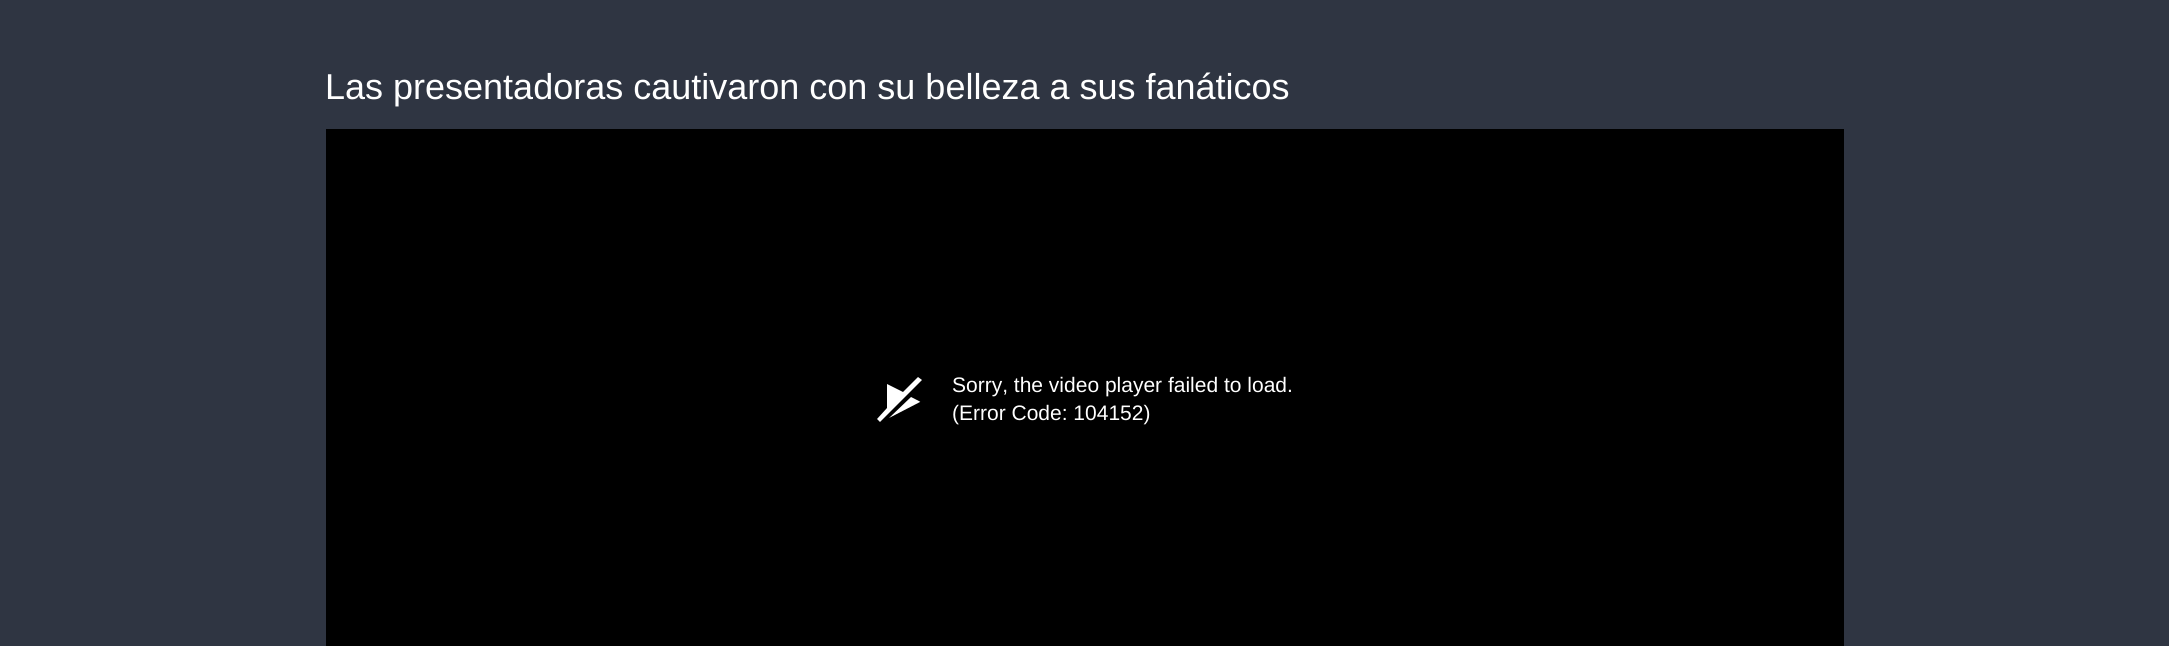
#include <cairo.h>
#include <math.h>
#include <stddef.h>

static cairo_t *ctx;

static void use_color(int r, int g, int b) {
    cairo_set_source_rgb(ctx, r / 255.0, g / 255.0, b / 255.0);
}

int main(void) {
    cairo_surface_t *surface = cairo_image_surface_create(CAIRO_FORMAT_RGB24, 2169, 646);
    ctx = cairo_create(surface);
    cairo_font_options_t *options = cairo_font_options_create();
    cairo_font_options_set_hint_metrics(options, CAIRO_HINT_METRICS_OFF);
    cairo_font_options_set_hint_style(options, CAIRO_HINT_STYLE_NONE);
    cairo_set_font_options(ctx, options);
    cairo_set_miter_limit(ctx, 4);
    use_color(47, 53, 66);
    cairo_paint(ctx);
    cairo_select_font_face(ctx, "Liberation Sans", CAIRO_FONT_SLANT_NORMAL, CAIRO_FONT_WEIGHT_NORMAL);
    cairo_set_font_size(ctx, 36);
    use_color(255, 255, 255);
    cairo_move_to(ctx, 325, 99);
    cairo_show_text(ctx, "Las presentadoras cautivaron con su belleza a sus fanáticos");
    use_color(0, 0, 0);
    cairo_rectangle(ctx, 326, 129, 1518, 517);
    cairo_fill(ctx);
    use_color(255, 255, 255);
    cairo_new_path(ctx);
    cairo_move_to(ctx, 920, 402);
    cairo_line_to(ctx, 889, 418);
    cairo_line_to(ctx, 911, 397);
    cairo_curve_to(ctx, 919, 401, 921, 402, 920, 402);
    cairo_close_path(ctx);
    cairo_move_to(ctx, 918, 377);
    cairo_line_to(ctx, 903, 392);
    cairo_line_to(ctx, 887, 384);
    cairo_line_to(ctx, 887, 408);
    cairo_line_to(ctx, 877, 419);
    cairo_line_to(ctx, 880, 422);
    cairo_line_to(ctx, 922, 380);
    cairo_close_path(ctx);
    cairo_fill(ctx);
    cairo_set_font_size(ctx, 21);
    cairo_move_to(ctx, 952, 392);
    cairo_show_text(ctx, "Sorry, the video player failed to load.");
    cairo_move_to(ctx, 952, 420);
    cairo_show_text(ctx, "(Error Code: 104152)");
    cairo_surface_write_to_png(surface, "result.png");
    cairo_font_options_destroy(options);
    cairo_destroy(ctx);
    cairo_surface_destroy(surface);
    return 0;
}
